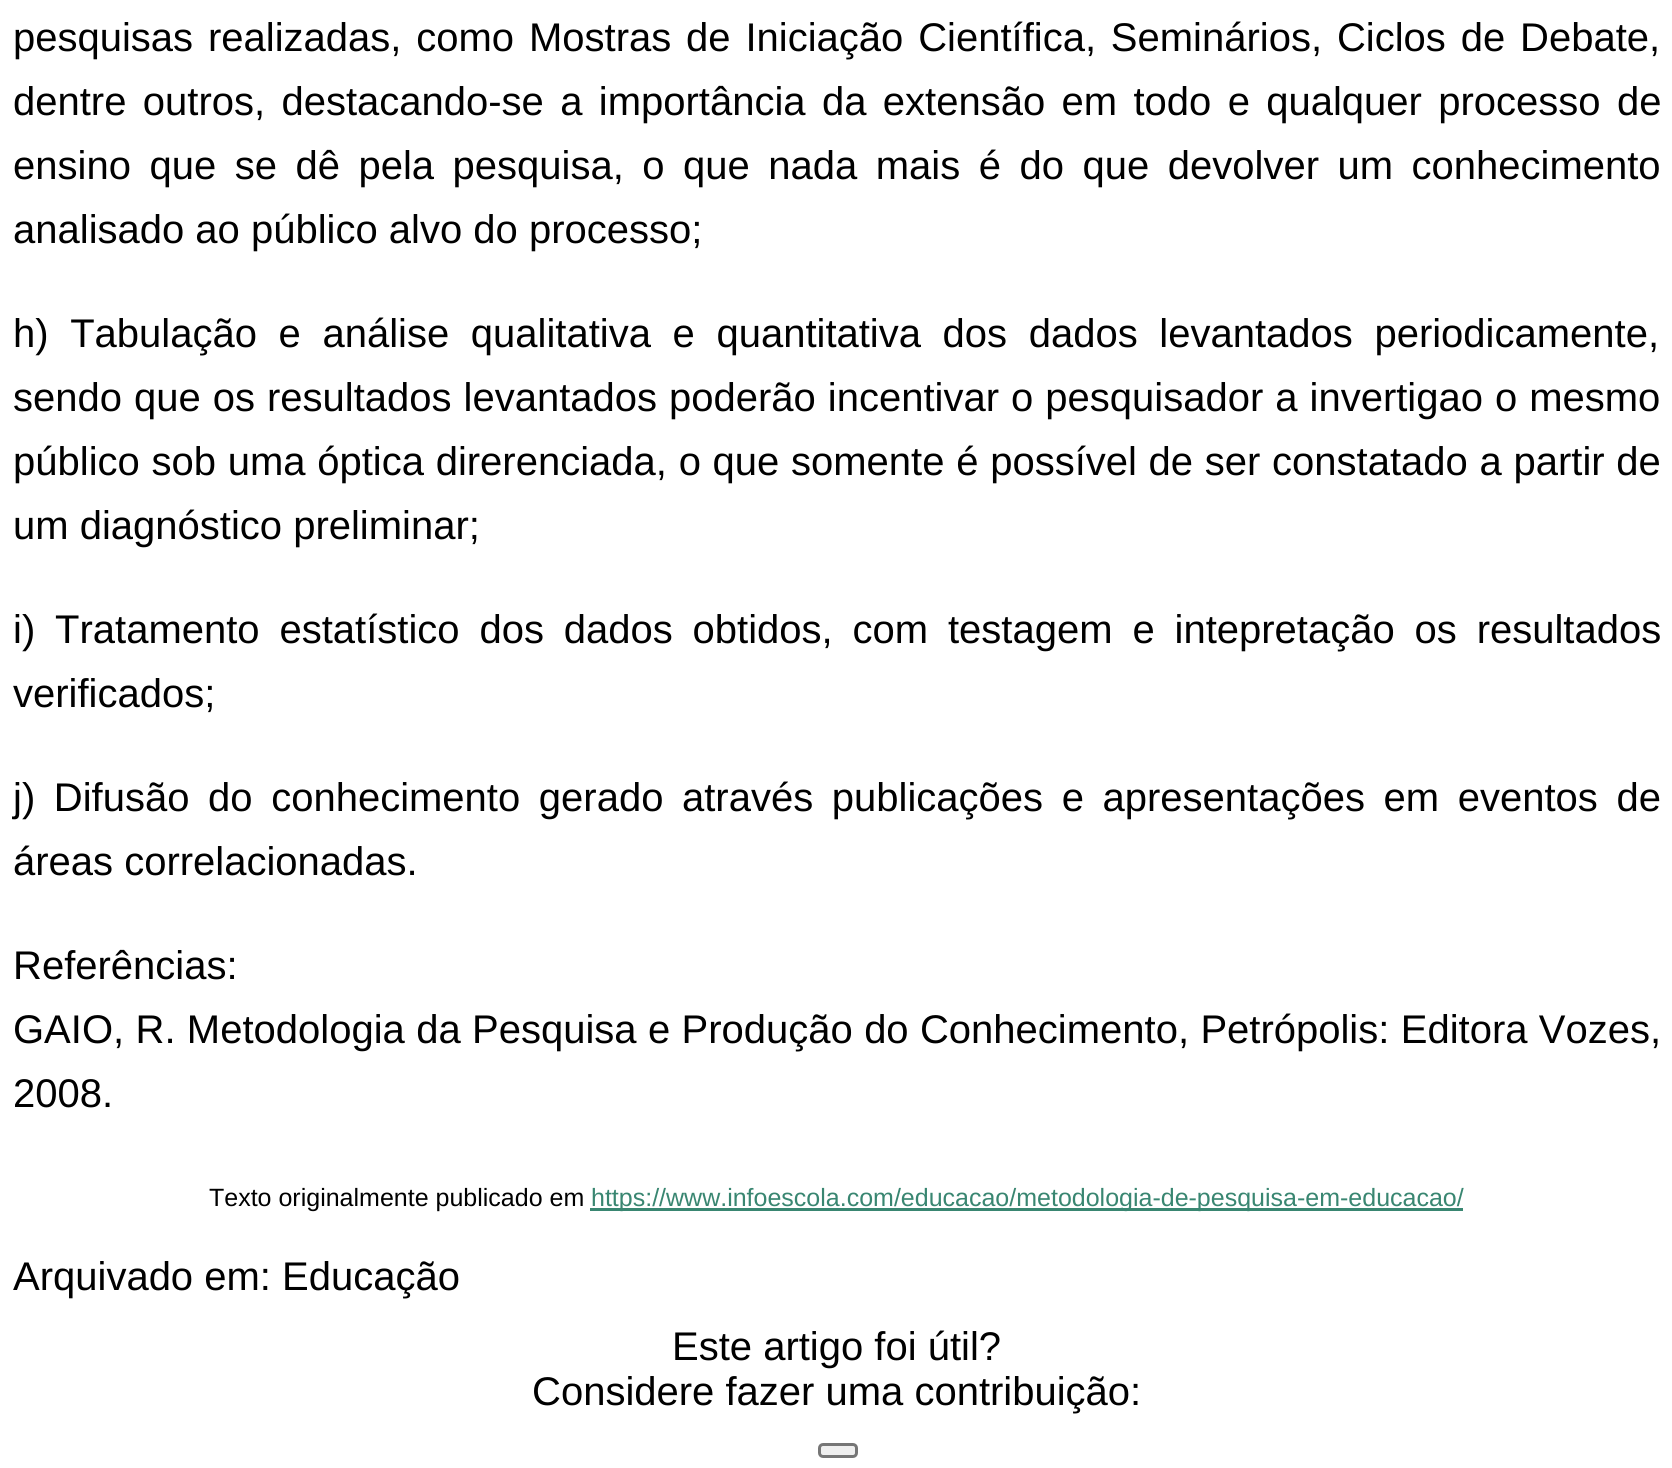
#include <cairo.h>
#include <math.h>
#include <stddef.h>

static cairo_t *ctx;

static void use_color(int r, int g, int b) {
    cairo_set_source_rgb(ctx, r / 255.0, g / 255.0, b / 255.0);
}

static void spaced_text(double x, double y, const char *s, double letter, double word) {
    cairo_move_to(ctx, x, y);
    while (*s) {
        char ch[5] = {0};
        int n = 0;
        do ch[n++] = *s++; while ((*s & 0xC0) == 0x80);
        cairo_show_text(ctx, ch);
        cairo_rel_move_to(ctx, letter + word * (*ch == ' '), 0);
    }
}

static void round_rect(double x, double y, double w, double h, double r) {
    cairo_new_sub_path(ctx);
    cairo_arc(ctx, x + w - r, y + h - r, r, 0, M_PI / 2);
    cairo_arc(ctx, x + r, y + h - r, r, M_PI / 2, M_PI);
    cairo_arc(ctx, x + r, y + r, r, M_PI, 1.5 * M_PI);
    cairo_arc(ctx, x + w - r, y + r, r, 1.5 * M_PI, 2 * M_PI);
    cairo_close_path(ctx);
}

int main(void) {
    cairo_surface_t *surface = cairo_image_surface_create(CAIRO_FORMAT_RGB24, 1672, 1468);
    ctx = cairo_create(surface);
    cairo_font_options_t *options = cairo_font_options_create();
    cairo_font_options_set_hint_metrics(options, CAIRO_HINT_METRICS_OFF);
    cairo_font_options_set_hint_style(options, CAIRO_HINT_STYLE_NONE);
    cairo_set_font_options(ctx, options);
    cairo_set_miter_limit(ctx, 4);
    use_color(255, 255, 255);
    cairo_paint(ctx);
    cairo_select_font_face(ctx, "Liberation Sans", CAIRO_FONT_SLANT_NORMAL, CAIRO_FONT_WEIGHT_NORMAL);
    cairo_set_font_size(ctx, 40);
    use_color(0, 0, 0);
    spaced_text(13, 51, "pesquisas realizadas, como Mostras de Iniciação Científica, Seminários, Ciclos de Debate,", 0, 3.75);
    spaced_text(13, 115, "dentre outros, destacando-se a importância da extensão em todo e qualquer processo de", 0, 5.25);
    spaced_text(13, 179, "ensino que se dê pela pesquisa, o que nada mais é do que devolver um conhecimento", 0, 7.4);
    cairo_move_to(ctx, 13, 243);
    cairo_show_text(ctx, "analisado ao público alvo do processo;");
    spaced_text(13, 347, "h) Tabulação e análise qualitativa e quantitativa dos dados levantados periodicamente,", 0, 10.5);
    spaced_text(13, 411, "sendo que os resultados levantados poderão incentivar o pesquisador a invertigao o mesmo", 0, 0.9);
    spaced_text(13, 475, "público sob uma óptica direrenciada, o que somente é possível de ser constatado a partir de", 0, 0.6);
    cairo_move_to(ctx, 13, 539);
    cairo_show_text(ctx, "um diagnóstico preliminar;");
    spaced_text(13, 643, "i) Tratamento estatístico dos dados obtidos, com testagem e intepretação os resultados", 0, 8.75);
    cairo_move_to(ctx, 13, 707);
    cairo_show_text(ctx, "verificados;");
    spaced_text(13, 811, "j) Difusão do conhecimento gerado através publicações e apresentações em eventos de", 0, 7.5);
    cairo_move_to(ctx, 13, 875);
    cairo_show_text(ctx, "áreas correlacionadas.");
    cairo_move_to(ctx, 13, 979);
    cairo_show_text(ctx, "Referências:");
    spaced_text(13, 1043, "GAIO, R. Metodologia da Pesquisa e Produção do Conhecimento, Petrópolis: Editora Vozes,", 0, 0.25);
    cairo_move_to(ctx, 13, 1107);
    cairo_show_text(ctx, "2008.");
    cairo_set_font_size(ctx, 25);
    cairo_move_to(ctx, 209, 1206);
    cairo_show_text(ctx, "Texto originalmente publicado em");
    use_color(57, 134, 113);
    cairo_rectangle(ctx, 590, 1208, 873, 3);
    cairo_fill(ctx);
    cairo_move_to(ctx, 591, 1206);
    cairo_show_text(ctx, "https://www.infoescola.com/educacao/metodologia-de-pesquisa-em-educacao/");
    cairo_set_font_size(ctx, 40);
    use_color(0, 0, 0);
    cairo_move_to(ctx, 13, 1290);
    cairo_show_text(ctx, "Arquivado em: Educação");
    cairo_move_to(ctx, 672, 1360);
    cairo_show_text(ctx, "Este artigo foi útil?");
    cairo_move_to(ctx, 532, 1405);
    cairo_show_text(ctx, "Considere fazer uma contribuição:");
    use_color(239, 239, 239);
    round_rect(819.5, 1444.5, 37, 12, 3.5);
    cairo_fill_preserve(ctx);
    use_color(118, 118, 118);
    cairo_set_line_width(ctx, 3);
    cairo_stroke(ctx);
    cairo_surface_write_to_png(surface, "result.png");
    cairo_font_options_destroy(options);
    cairo_destroy(ctx);
    cairo_surface_destroy(surface);
    return 0;
}
